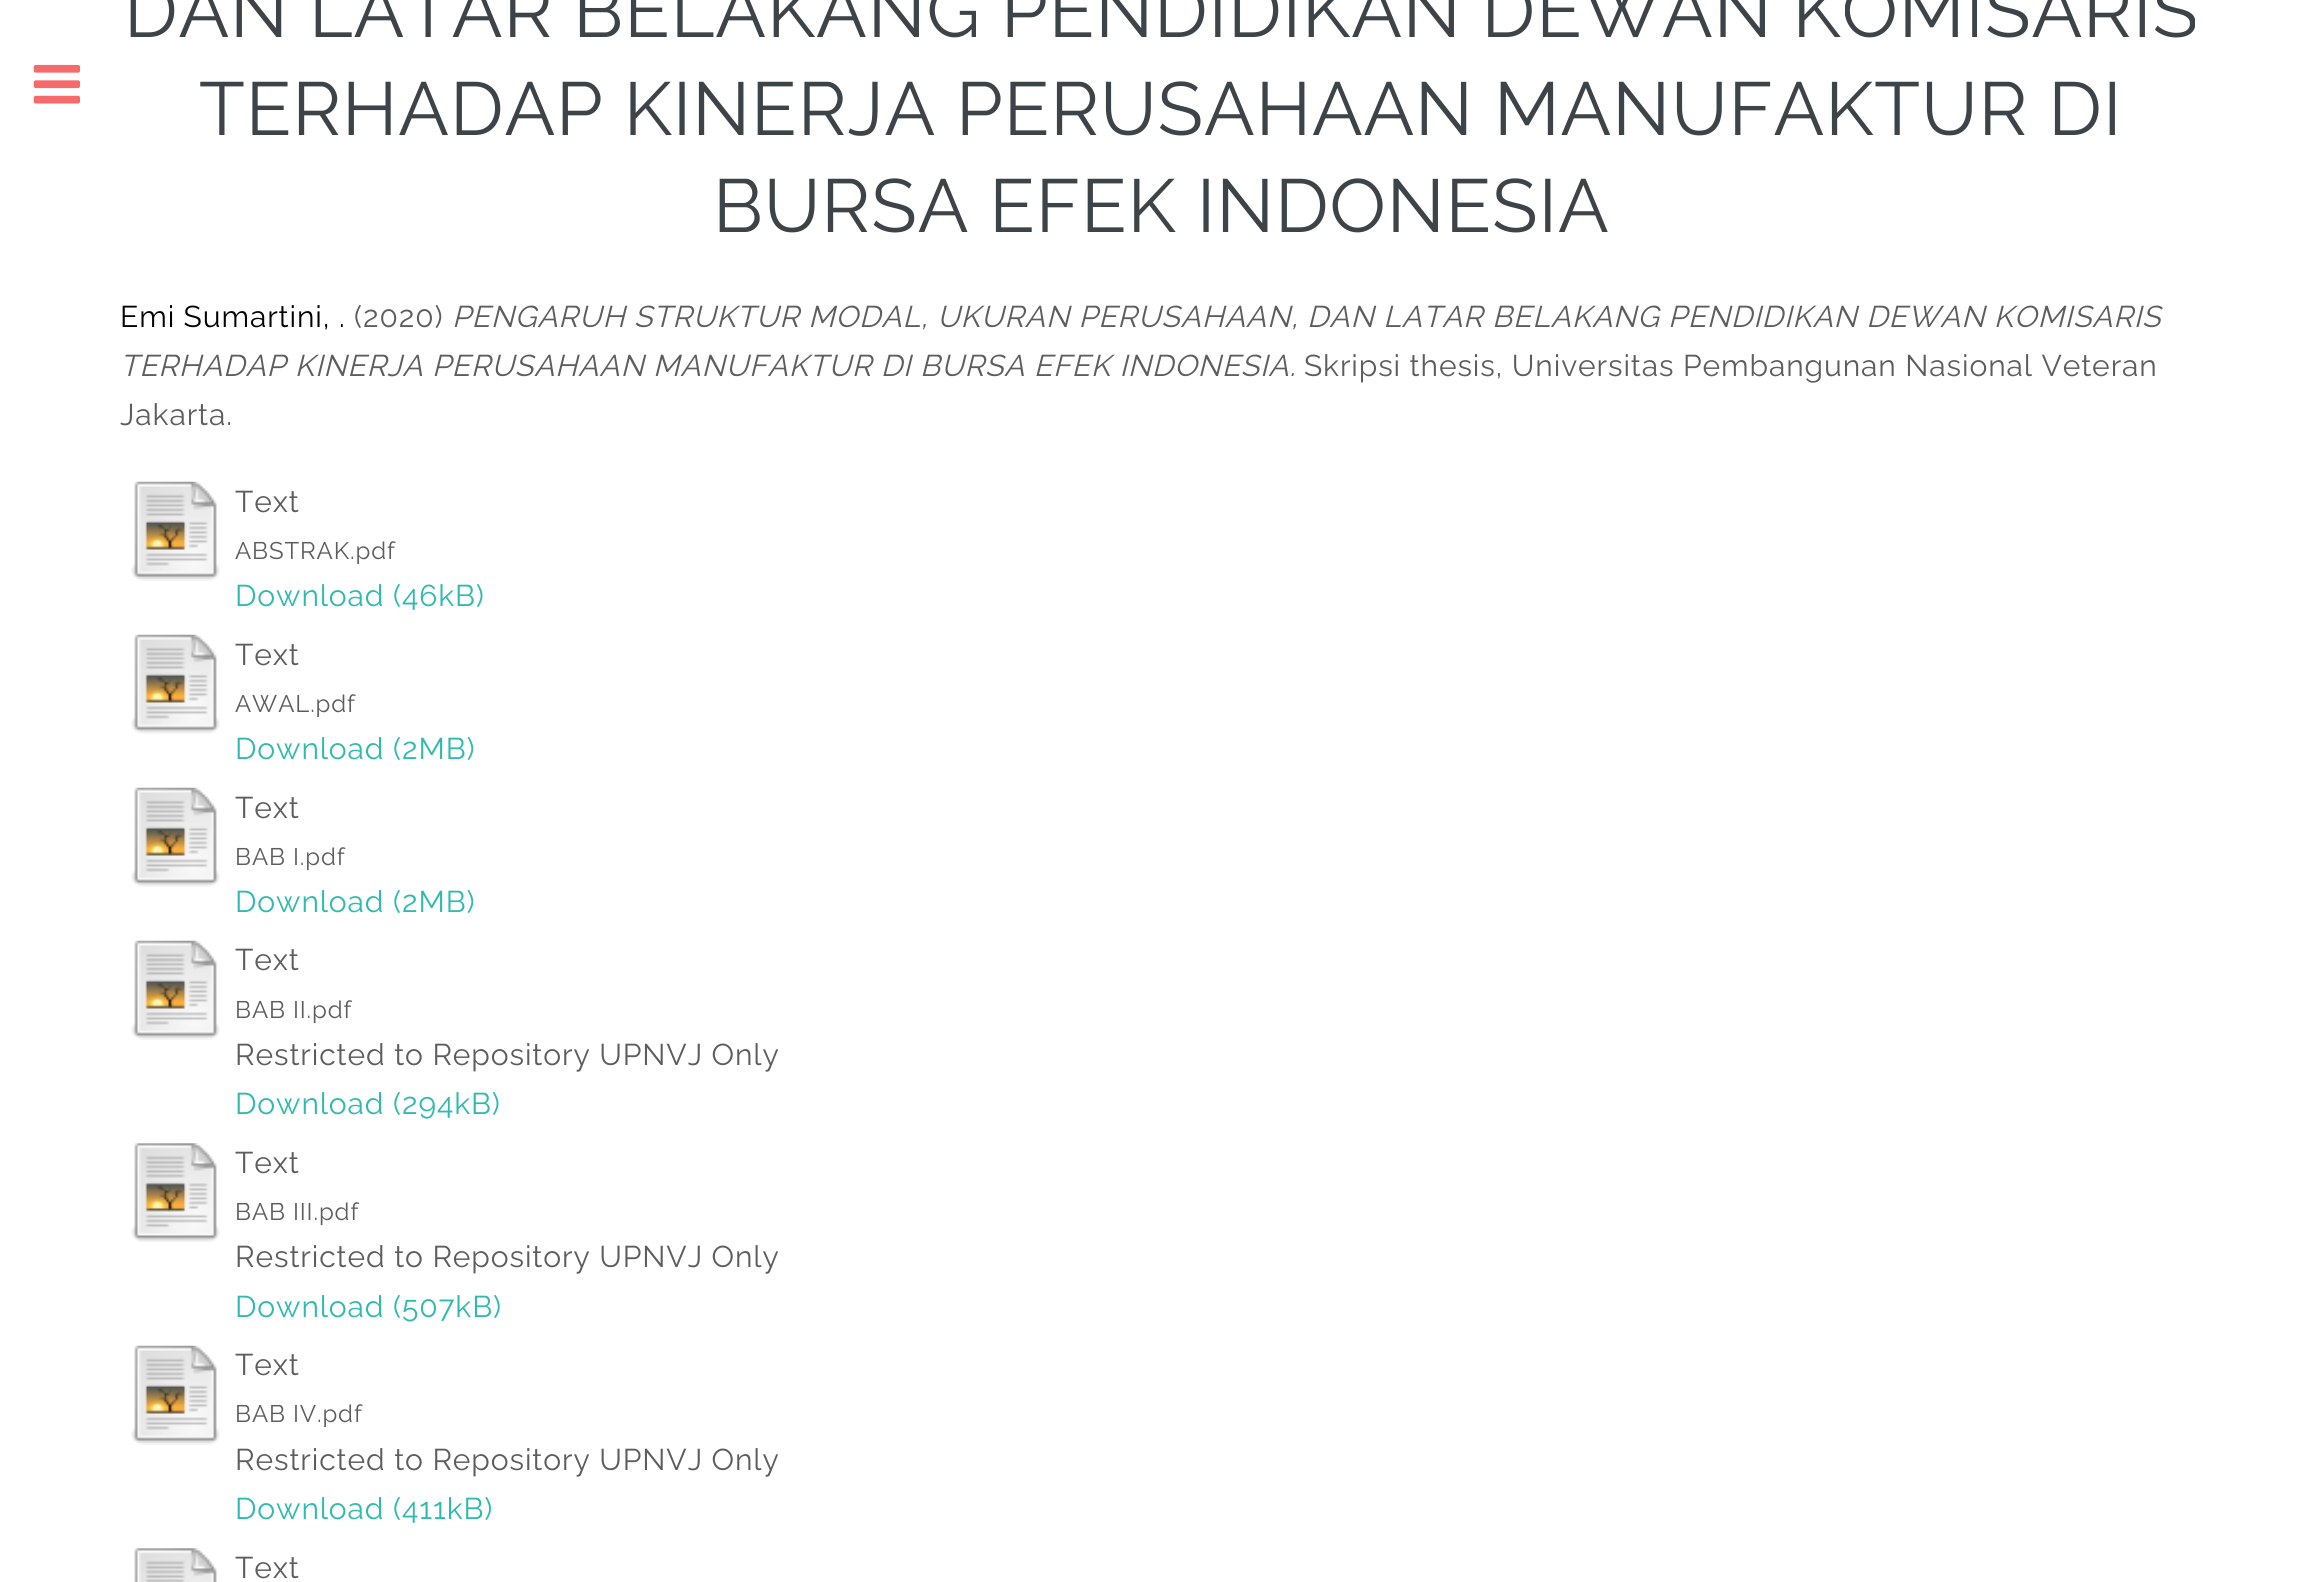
#include <cairo.h>
#include <math.h>
#include <stddef.h>

static cairo_t *ctx;

static void use_color(int r, int g, int b) {
    cairo_set_source_rgb(ctx, r / 255.0, g / 255.0, b / 255.0);
}

static void spaced_text(double x, double y, const char *s, double letter, double word) {
    cairo_move_to(ctx, x, y);
    while (*s) {
        char ch[5] = {0};
        int n = 0;
        do ch[n++] = *s++; while ((*s & 0xC0) == 0x80);
        cairo_show_text(ctx, ch);
        cairo_rel_move_to(ctx, letter + word * (*ch == ' '), 0);
    }
}

static void picture(const char *path, double x, double y, double w, double h) {
    cairo_surface_t *image = cairo_image_surface_create_from_png(path);
    cairo_save(ctx);
    cairo_set_source_surface(ctx, image, x, y);
    cairo_rectangle(ctx, x, y, w, h);
    cairo_fill(ctx);
    cairo_restore(ctx);
    cairo_surface_destroy(image);
}

int main(void) {
    cairo_surface_t *surface = cairo_image_surface_create(CAIRO_FORMAT_RGB24, 2320, 1582);
    ctx = cairo_create(surface);
    cairo_font_options_t *options = cairo_font_options_create();
    cairo_font_options_set_hint_metrics(options, CAIRO_HINT_METRICS_OFF);
    cairo_font_options_set_hint_style(options, CAIRO_HINT_STYLE_NONE);
    cairo_set_font_options(ctx, options);
    cairo_set_miter_limit(ctx, 4);
    use_color(255, 255, 255);
    cairo_paint(ctx);
    picture("img1.png", 33, 64, 48, 40);
    cairo_select_font_face(ctx, "Raleway", CAIRO_FONT_SLANT_NORMAL, CAIRO_FONT_WEIGHT_NORMAL);
    cairo_set_font_size(ctx, 75);
    use_color(61, 68, 73);
    spaced_text(124, 37, "DAN LATAR BELAKANG PENDIDIKAN DEWAN KOMISARIS", 0.9, 0);
    spaced_text(199, 135, "TERHADAP KINERJA PERUSAHAAN MANUFAKTUR DI", 0.9, 0);
    spaced_text(713, 232, "BURSA EFEK INDONESIA", 0.9, 0);
    cairo_set_font_size(ctx, 30);
    use_color(0, 0, 0);
    spaced_text(120, 327, "Emi Sumartini, .", 0.9, 0);
    use_color(93, 93, 93);
    spaced_text(354, 327, "(2020)", 0.9, 0);
    cairo_select_font_face(ctx, "Raleway", CAIRO_FONT_SLANT_ITALIC, CAIRO_FONT_WEIGHT_NORMAL);
    spaced_text(452, 327, "PENGARUH STRUKTUR MODAL, UKURAN PERUSAHAAN,", 0.9, 0);
    spaced_text(1307, 327, "DAN LATAR BELAKANG PENDIDIKAN DEWAN KOMISARIS", 0.9, 0);
    spaced_text(120, 376, "TERHADAP KINERJA PERUSAHAAN MANUFAKTUR DI BURSA EFEK INDONESIA.", 0.9, 0);
    cairo_select_font_face(ctx, "Raleway", CAIRO_FONT_SLANT_NORMAL, CAIRO_FONT_WEIGHT_NORMAL);
    spaced_text(1304, 376, "Skripsi thesis, Universitas Pembangunan Nasional Veteran", 0.9, 0);
    spaced_text(120, 425, "Jakarta.", 0.9, 0);
    picture("img2.png", 131, 481, 89, 100);
    spaced_text(235, 512, "Text", 0.9, 0);
    cairo_set_font_size(ctx, 24);
    spaced_text(235, 559, "ABSTRAK.pdf", 0.9, 0);
    cairo_set_font_size(ctx, 30);
    use_color(46, 186, 174);
    spaced_text(235, 606, "Download (46kB)", 0.9, 0);
    picture("img2.png", 131, 634, 89, 100);
    use_color(93, 93, 93);
    spaced_text(235, 665, "Text", 0.9, 0);
    cairo_set_font_size(ctx, 24);
    spaced_text(235, 712, "AWAL.pdf", 0.9, 0);
    cairo_set_font_size(ctx, 30);
    use_color(46, 186, 174);
    spaced_text(235, 759, "Download (2MB)", 0.9, 0);
    picture("img2.png", 131, 787, 89, 100);
    use_color(93, 93, 93);
    spaced_text(235, 818, "Text", 0.9, 0);
    cairo_set_font_size(ctx, 24);
    spaced_text(235, 865, "BAB I.pdf", 0.9, 0);
    cairo_set_font_size(ctx, 30);
    use_color(46, 186, 174);
    spaced_text(235, 912, "Download (2MB)", 0.9, 0);
    picture("img2.png", 131, 940, 89, 100);
    use_color(93, 93, 93);
    spaced_text(235, 970, "Text", 0.9, 0);
    cairo_set_font_size(ctx, 24);
    spaced_text(235, 1018, "BAB II.pdf", 0.9, 0);
    cairo_set_font_size(ctx, 30);
    spaced_text(235, 1065, "Restricted to Repository UPNVJ Only", 0.9, 0);
    use_color(46, 186, 174);
    spaced_text(235, 1114, "Download (294kB)", 0.9, 0);
    picture("img3.png", 131, 1143, 89, 99);
    use_color(93, 93, 93);
    spaced_text(235, 1173, "Text", 0.9, 0);
    cairo_set_font_size(ctx, 24);
    spaced_text(235, 1220, "BAB III.pdf", 0.9, 0);
    cairo_set_font_size(ctx, 30);
    spaced_text(235, 1267, "Restricted to Repository UPNVJ Only", 0.9, 0);
    use_color(46, 186, 174);
    spaced_text(235, 1317, "Download (507kB)", 0.9, 0);
    picture("img2.png", 131, 1345, 89, 100);
    use_color(93, 93, 93);
    spaced_text(235, 1375, "Text", 0.9, 0);
    cairo_set_font_size(ctx, 24);
    spaced_text(235, 1422, "BAB IV.pdf", 0.9, 0);
    cairo_set_font_size(ctx, 30);
    spaced_text(235, 1470, "Restricted to Repository UPNVJ Only", 0.9, 0);
    use_color(46, 186, 174);
    spaced_text(235, 1519, "Download (411kB)", 0.9, 0);
    picture("img4.png", 134, 1548, 83, 34);
    use_color(93, 93, 93);
    spaced_text(235, 1578, "Text", 0.9, 0);
    cairo_surface_write_to_png(surface, "result.png");
    cairo_font_options_destroy(options);
    cairo_destroy(ctx);
    cairo_surface_destroy(surface);
    return 0;
}
